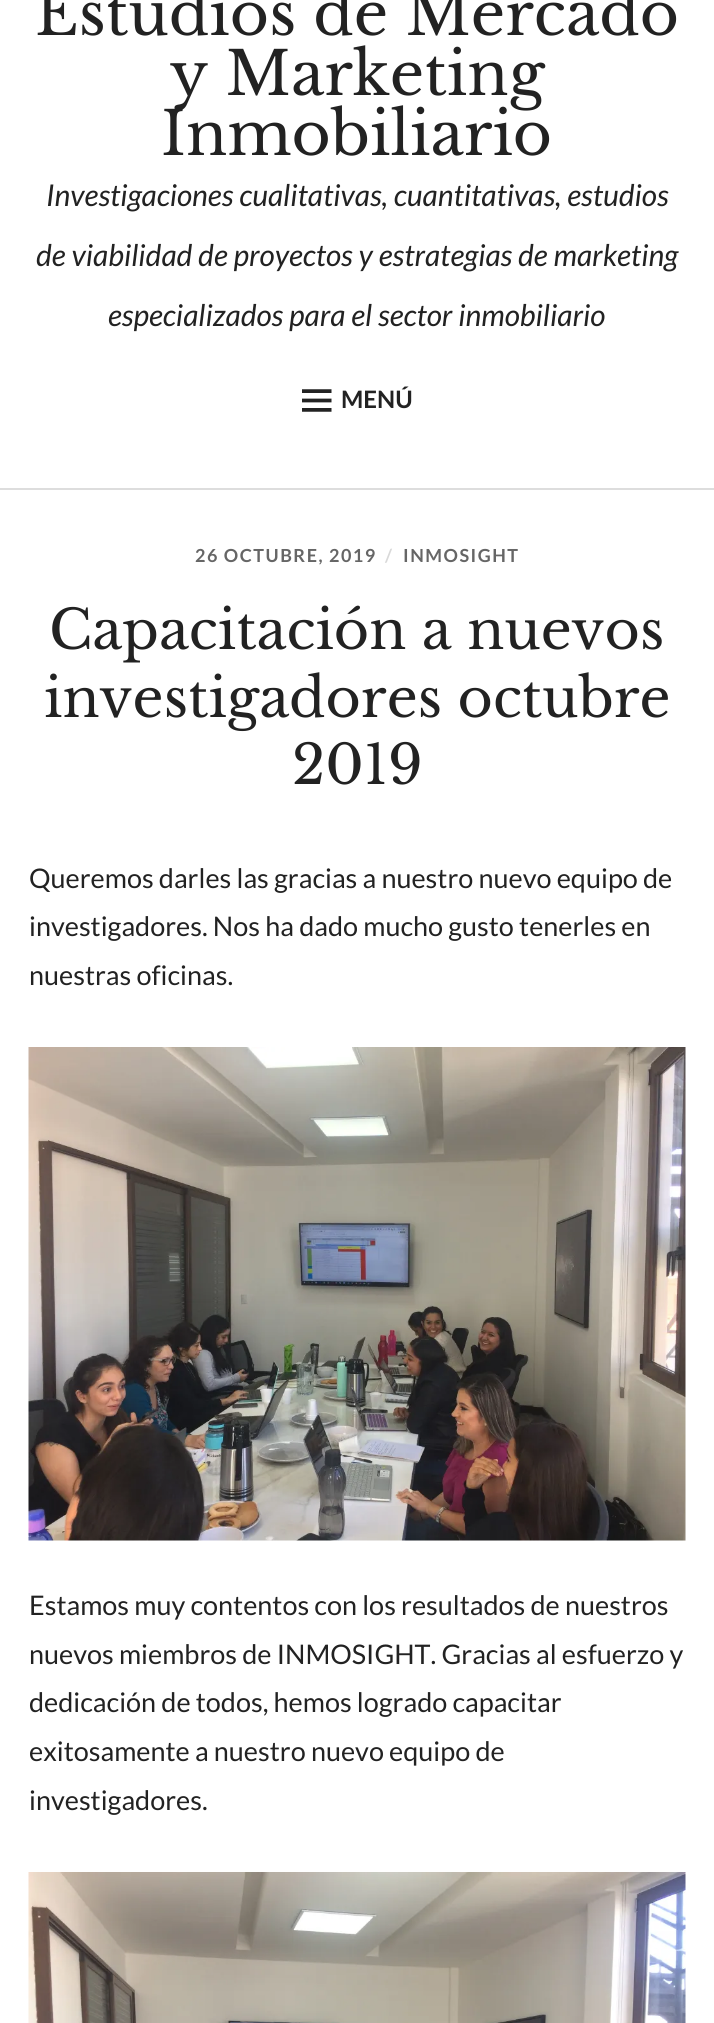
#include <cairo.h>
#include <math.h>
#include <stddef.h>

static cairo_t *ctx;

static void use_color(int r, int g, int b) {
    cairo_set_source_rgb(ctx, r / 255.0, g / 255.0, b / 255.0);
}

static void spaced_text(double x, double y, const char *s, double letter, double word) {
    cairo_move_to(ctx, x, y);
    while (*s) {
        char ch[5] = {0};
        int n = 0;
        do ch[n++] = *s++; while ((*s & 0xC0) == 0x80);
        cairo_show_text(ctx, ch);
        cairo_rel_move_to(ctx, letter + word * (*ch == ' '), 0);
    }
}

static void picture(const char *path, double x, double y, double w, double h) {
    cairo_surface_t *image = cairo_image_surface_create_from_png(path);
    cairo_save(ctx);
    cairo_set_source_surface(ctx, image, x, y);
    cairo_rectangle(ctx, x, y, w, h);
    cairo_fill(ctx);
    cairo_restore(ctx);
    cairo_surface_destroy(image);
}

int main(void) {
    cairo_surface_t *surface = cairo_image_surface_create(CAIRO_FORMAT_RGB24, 714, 2023);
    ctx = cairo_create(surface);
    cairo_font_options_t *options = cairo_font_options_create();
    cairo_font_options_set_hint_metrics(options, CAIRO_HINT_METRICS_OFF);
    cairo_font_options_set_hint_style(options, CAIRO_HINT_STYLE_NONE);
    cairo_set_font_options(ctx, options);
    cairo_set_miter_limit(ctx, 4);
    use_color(255, 255, 255);
    cairo_paint(ctx);
    use_color(221, 221, 221);
    cairo_rectangle(ctx, 0, 488, 714, 2);
    cairo_fill(ctx);
    cairo_select_font_face(ctx, "Libre Baskerville", CAIRO_FONT_SLANT_NORMAL, CAIRO_FONT_WEIGHT_NORMAL);
    cairo_set_font_size(ctx, 60);
    use_color(34, 34, 34);
    cairo_move_to(ctx, 35, 35);
    cairo_show_text(ctx, "Estudios de Mercado");
    cairo_move_to(ctx, 170, 95);
    cairo_show_text(ctx, "y Marketing");
    cairo_move_to(ctx, 161, 155);
    cairo_show_text(ctx, "Inmobiliario");
    cairo_select_font_face(ctx, "Lato", CAIRO_FONT_SLANT_ITALIC, CAIRO_FONT_WEIGHT_NORMAL);
    cairo_set_font_size(ctx, 30);
    cairo_move_to(ctx, 46, 206);
    cairo_show_text(ctx, "Investigaciones cualitativas, cuantitativas, estudios");
    cairo_move_to(ctx, 36, 266);
    cairo_show_text(ctx, "de viabilidad de proyectos y estrategias de marketing");
    cairo_move_to(ctx, 108, 326);
    cairo_show_text(ctx, "especializados para el sector inmobiliario");
    picture("img1.png", 302, 389, 30, 23);
    cairo_select_font_face(ctx, "Lato", CAIRO_FONT_SLANT_NORMAL, CAIRO_FONT_WEIGHT_BOLD);
    cairo_set_font_size(ctx, 24);
    cairo_move_to(ctx, 341, 408);
    cairo_show_text(ctx, "MENÚ");
    cairo_set_font_size(ctx, 18);
    use_color(102, 102, 102);
    spaced_text(195, 562, "26 OCTUBRE, 2019", 1.5, 0);
    use_color(217, 217, 217);
    spaced_text(385, 562, "/", 1.5, 0);
    use_color(102, 102, 102);
    spaced_text(403, 562, "INMOSIGHT", 1.5, 0);
    cairo_select_font_face(ctx, "Libre Baskerville", CAIRO_FONT_SLANT_NORMAL, CAIRO_FONT_WEIGHT_NORMAL);
    cairo_set_font_size(ctx, 54);
    use_color(34, 34, 34);
    cairo_move_to(ctx, 49, 649);
    cairo_show_text(ctx, "Capacitación a nuevos");
    cairo_move_to(ctx, 44, 717);
    cairo_show_text(ctx, "investigadores octubre");
    cairo_move_to(ctx, 292, 784);
    cairo_show_text(ctx, "2019");
    cairo_select_font_face(ctx, "Lato", CAIRO_FONT_SLANT_NORMAL, CAIRO_FONT_WEIGHT_NORMAL);
    cairo_set_font_size(ctx, 27);
    cairo_move_to(ctx, 29, 888);
    cairo_show_text(ctx, "Queremos darles las gracias a nuestro nuevo equipo de");
    cairo_move_to(ctx, 29, 936);
    cairo_show_text(ctx, "investigadores. Nos ha dado mucho gusto tenerles en");
    cairo_move_to(ctx, 29, 985);
    cairo_show_text(ctx, "nuestras oficinas.");
    picture("img2.png", 28, 1047, 658, 494);
    cairo_move_to(ctx, 29, 1615);
    cairo_show_text(ctx, "Estamos muy contentos con los resultados de nuestros");
    cairo_move_to(ctx, 29, 1664);
    cairo_show_text(ctx, "nuevos miembros de INMOSIGHT. Gracias al esfuerzo y");
    cairo_move_to(ctx, 29, 1712);
    cairo_show_text(ctx, "dedicación de todos, hemos logrado capacitar");
    cairo_move_to(ctx, 29, 1761);
    cairo_show_text(ctx, "exitosamente a nuestro nuevo equipo de");
    cairo_move_to(ctx, 29, 1810);
    cairo_show_text(ctx, "investigadores.");
    picture("img3.png", 28, 1872, 658, 151);
    cairo_surface_write_to_png(surface, "result.png");
    cairo_font_options_destroy(options);
    cairo_destroy(ctx);
    cairo_surface_destroy(surface);
    return 0;
}
